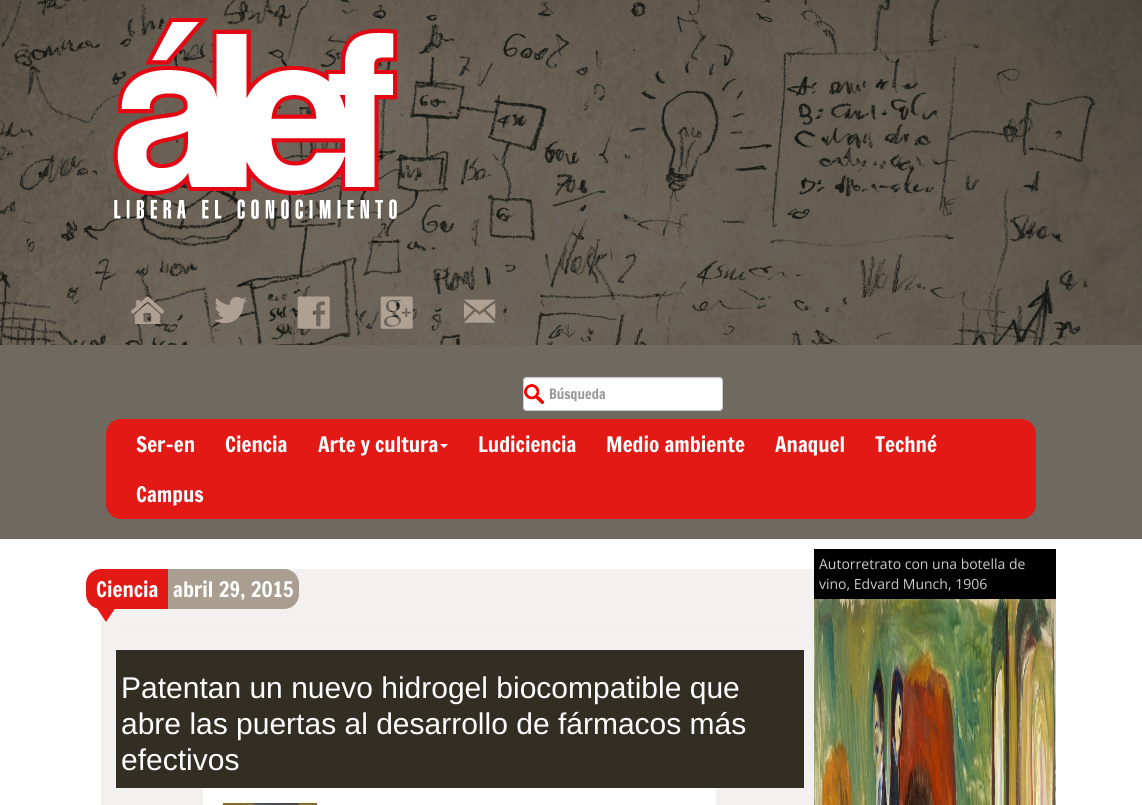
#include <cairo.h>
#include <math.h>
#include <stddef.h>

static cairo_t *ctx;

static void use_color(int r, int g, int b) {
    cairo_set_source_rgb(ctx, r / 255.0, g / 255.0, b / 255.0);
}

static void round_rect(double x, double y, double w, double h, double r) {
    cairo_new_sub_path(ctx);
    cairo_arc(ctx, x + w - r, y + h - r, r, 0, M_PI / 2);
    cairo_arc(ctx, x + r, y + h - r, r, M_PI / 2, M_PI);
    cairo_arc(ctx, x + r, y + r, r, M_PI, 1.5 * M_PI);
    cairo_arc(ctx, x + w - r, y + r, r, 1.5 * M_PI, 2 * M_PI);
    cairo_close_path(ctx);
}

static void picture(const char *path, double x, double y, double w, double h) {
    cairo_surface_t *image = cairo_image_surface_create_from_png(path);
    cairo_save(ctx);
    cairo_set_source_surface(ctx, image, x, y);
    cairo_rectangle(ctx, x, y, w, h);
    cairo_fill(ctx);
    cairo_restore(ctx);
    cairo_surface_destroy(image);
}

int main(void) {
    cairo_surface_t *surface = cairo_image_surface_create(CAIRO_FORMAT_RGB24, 1142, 805);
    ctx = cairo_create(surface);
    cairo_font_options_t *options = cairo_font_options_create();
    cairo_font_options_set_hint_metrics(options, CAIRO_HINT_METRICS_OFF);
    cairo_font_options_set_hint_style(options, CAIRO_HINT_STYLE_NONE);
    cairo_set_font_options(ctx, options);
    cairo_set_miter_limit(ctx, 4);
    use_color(255, 255, 255);
    cairo_paint(ctx);
    use_color(111, 105, 95);
    cairo_rectangle(ctx, 0, 345, 1142, 194);
    cairo_fill(ctx);
    picture("img1.png", 0, 0, 1142, 345);
    picture("img2.png", 113, 18, 285, 201);
    picture("img3.png", 131, 296, 33, 28);
    picture("img4.png", 214, 297, 33, 26);
    picture("img5.png", 297, 296, 33, 33);
    picture("img6.png", 380, 296, 33, 33);
    picture("img7.png", 464, 299, 32, 24);
    use_color(255, 255, 255);
    round_rect(523, 377, 200, 34, 4);
    cairo_fill(ctx);
    picture("img8.png", 524, 384, 20, 20);
    use_color(236, 236, 236);
    cairo_new_path(ctx);
    cairo_move_to(ctx, 527, 379);
    cairo_line_to(ctx, 719, 379);
    cairo_curve_to(ctx, 721, 379, 722, 380, 722, 382);
    cairo_curve_to(ctx, 722, 380, 721, 378, 719, 378);
    cairo_line_to(ctx, 527, 378);
    cairo_curve_to(ctx, 525, 378, 524, 380, 524, 382);
    cairo_curve_to(ctx, 524, 380, 525, 379, 527, 379);
    cairo_close_path(ctx);
    cairo_fill(ctx);
    round_rect(523.5, 377.5, 199, 33, 3.5);
    use_color(204, 204, 204);
    cairo_set_line_width(ctx, 1);
    cairo_stroke(ctx);
    cairo_select_font_face(ctx, "Francois One", CAIRO_FONT_SLANT_NORMAL, CAIRO_FONT_WEIGHT_NORMAL);
    cairo_set_font_size(ctx, 14);
    use_color(153, 153, 153);
    cairo_move_to(ctx, 549, 399);
    cairo_show_text(ctx, "Búsqueda");
    use_color(227, 25, 22);
    round_rect(106, 419, 930, 100, 15);
    cairo_fill(ctx);
    cairo_set_font_size(ctx, 21);
    use_color(255, 255, 255);
    cairo_move_to(ctx, 136, 452);
    cairo_show_text(ctx, "Ser-en");
    cairo_move_to(ctx, 225, 452);
    cairo_show_text(ctx, "Ciencia");
    cairo_move_to(ctx, 318, 452);
    cairo_show_text(ctx, "Arte y cultura");
    cairo_new_path(ctx);
    cairo_move_to(ctx, 440, 444);
    cairo_line_to(ctx, 448, 444);
    cairo_line_to(ctx, 444, 448);
    cairo_close_path(ctx);
    cairo_fill(ctx);
    cairo_move_to(ctx, 478, 452);
    cairo_show_text(ctx, "Ludiciencia");
    cairo_move_to(ctx, 606, 452);
    cairo_show_text(ctx, "Medio ambiente");
    cairo_move_to(ctx, 775, 452);
    cairo_show_text(ctx, "Anaquel");
    cairo_move_to(ctx, 875, 452);
    cairo_show_text(ctx, "Techné");
    cairo_move_to(ctx, 136, 502);
    cairo_show_text(ctx, "Campus");
    use_color(0, 0, 0);
    cairo_rectangle(ctx, 814, 549, 242, 50);
    cairo_fill(ctx);
    cairo_select_font_face(ctx, "Open Sans", CAIRO_FONT_SLANT_NORMAL, CAIRO_FONT_WEIGHT_NORMAL);
    cairo_set_font_size(ctx, 14);
    use_color(204, 204, 204);
    cairo_move_to(ctx, 819, 569);
    cairo_show_text(ctx, "Autorretrato con una botella de");
    cairo_move_to(ctx, 819, 589);
    cairo_show_text(ctx, "vino, Edvard Munch, 1906");
    picture("img9.png", 814, 599, 242, 206);
    use_color(243, 241, 240);
    cairo_rectangle(ctx, 101, 569, 713, 236);
    cairo_fill(ctx);
    use_color(227, 25, 22);
    cairo_new_path(ctx);
    cairo_move_to(ctx, 101, 569);
    cairo_line_to(ctx, 168, 569);
    cairo_line_to(ctx, 168, 609);
    cairo_line_to(ctx, 101, 609);
    cairo_curve_to(ctx, 92.5, 609, 86, 602.5, 86, 594);
    cairo_line_to(ctx, 86, 584);
    cairo_curve_to(ctx, 86, 575.5, 92.5, 569, 101, 569);
    cairo_close_path(ctx);
    cairo_fill(ctx);
    cairo_select_font_face(ctx, "Francois One", CAIRO_FONT_SLANT_NORMAL, CAIRO_FONT_WEIGHT_NORMAL);
    cairo_set_font_size(ctx, 21);
    use_color(255, 255, 255);
    cairo_move_to(ctx, 96, 597);
    cairo_show_text(ctx, "Ciencia");
    use_color(227, 25, 22);
    cairo_new_path(ctx);
    cairo_move_to(ctx, 96, 607);
    cairo_line_to(ctx, 116, 607);
    cairo_line_to(ctx, 106, 622);
    cairo_close_path(ctx);
    cairo_fill(ctx);
    use_color(169, 158, 144);
    cairo_new_path(ctx);
    cairo_move_to(ctx, 168, 569);
    cairo_line_to(ctx, 284, 569);
    cairo_curve_to(ctx, 292.5, 569, 299, 575.5, 299, 584);
    cairo_line_to(ctx, 299, 594);
    cairo_curve_to(ctx, 299, 602.5, 292.5, 609, 284, 609);
    cairo_line_to(ctx, 168, 609);
    cairo_close_path(ctx);
    cairo_fill(ctx);
    use_color(255, 255, 255);
    cairo_move_to(ctx, 173, 597);
    cairo_show_text(ctx, "abril 29, 2015");
    use_color(238, 238, 238);
    cairo_rectangle(ctx, 116, 629, 688, 1);
    cairo_fill(ctx);
    use_color(50, 46, 36);
    cairo_rectangle(ctx, 116, 650, 688, 138);
    cairo_fill(ctx);
    cairo_select_font_face(ctx, "Liberation Sans", CAIRO_FONT_SLANT_NORMAL, CAIRO_FONT_WEIGHT_NORMAL);
    cairo_set_font_size(ctx, 30);
    use_color(255, 255, 255);
    cairo_move_to(ctx, 121, 698);
    cairo_show_text(ctx, "Patentan un nuevo hidrogel biocompatible que");
    cairo_move_to(ctx, 121, 734);
    cairo_show_text(ctx, "abre las puertas al desarrollo de fármacos más");
    cairo_move_to(ctx, 121, 770);
    cairo_show_text(ctx, "efectivos");
    picture("img10.png", 203, 788, 513, 17);
    cairo_surface_write_to_png(surface, "result.png");
    cairo_font_options_destroy(options);
    cairo_destroy(ctx);
    cairo_surface_destroy(surface);
    return 0;
}
